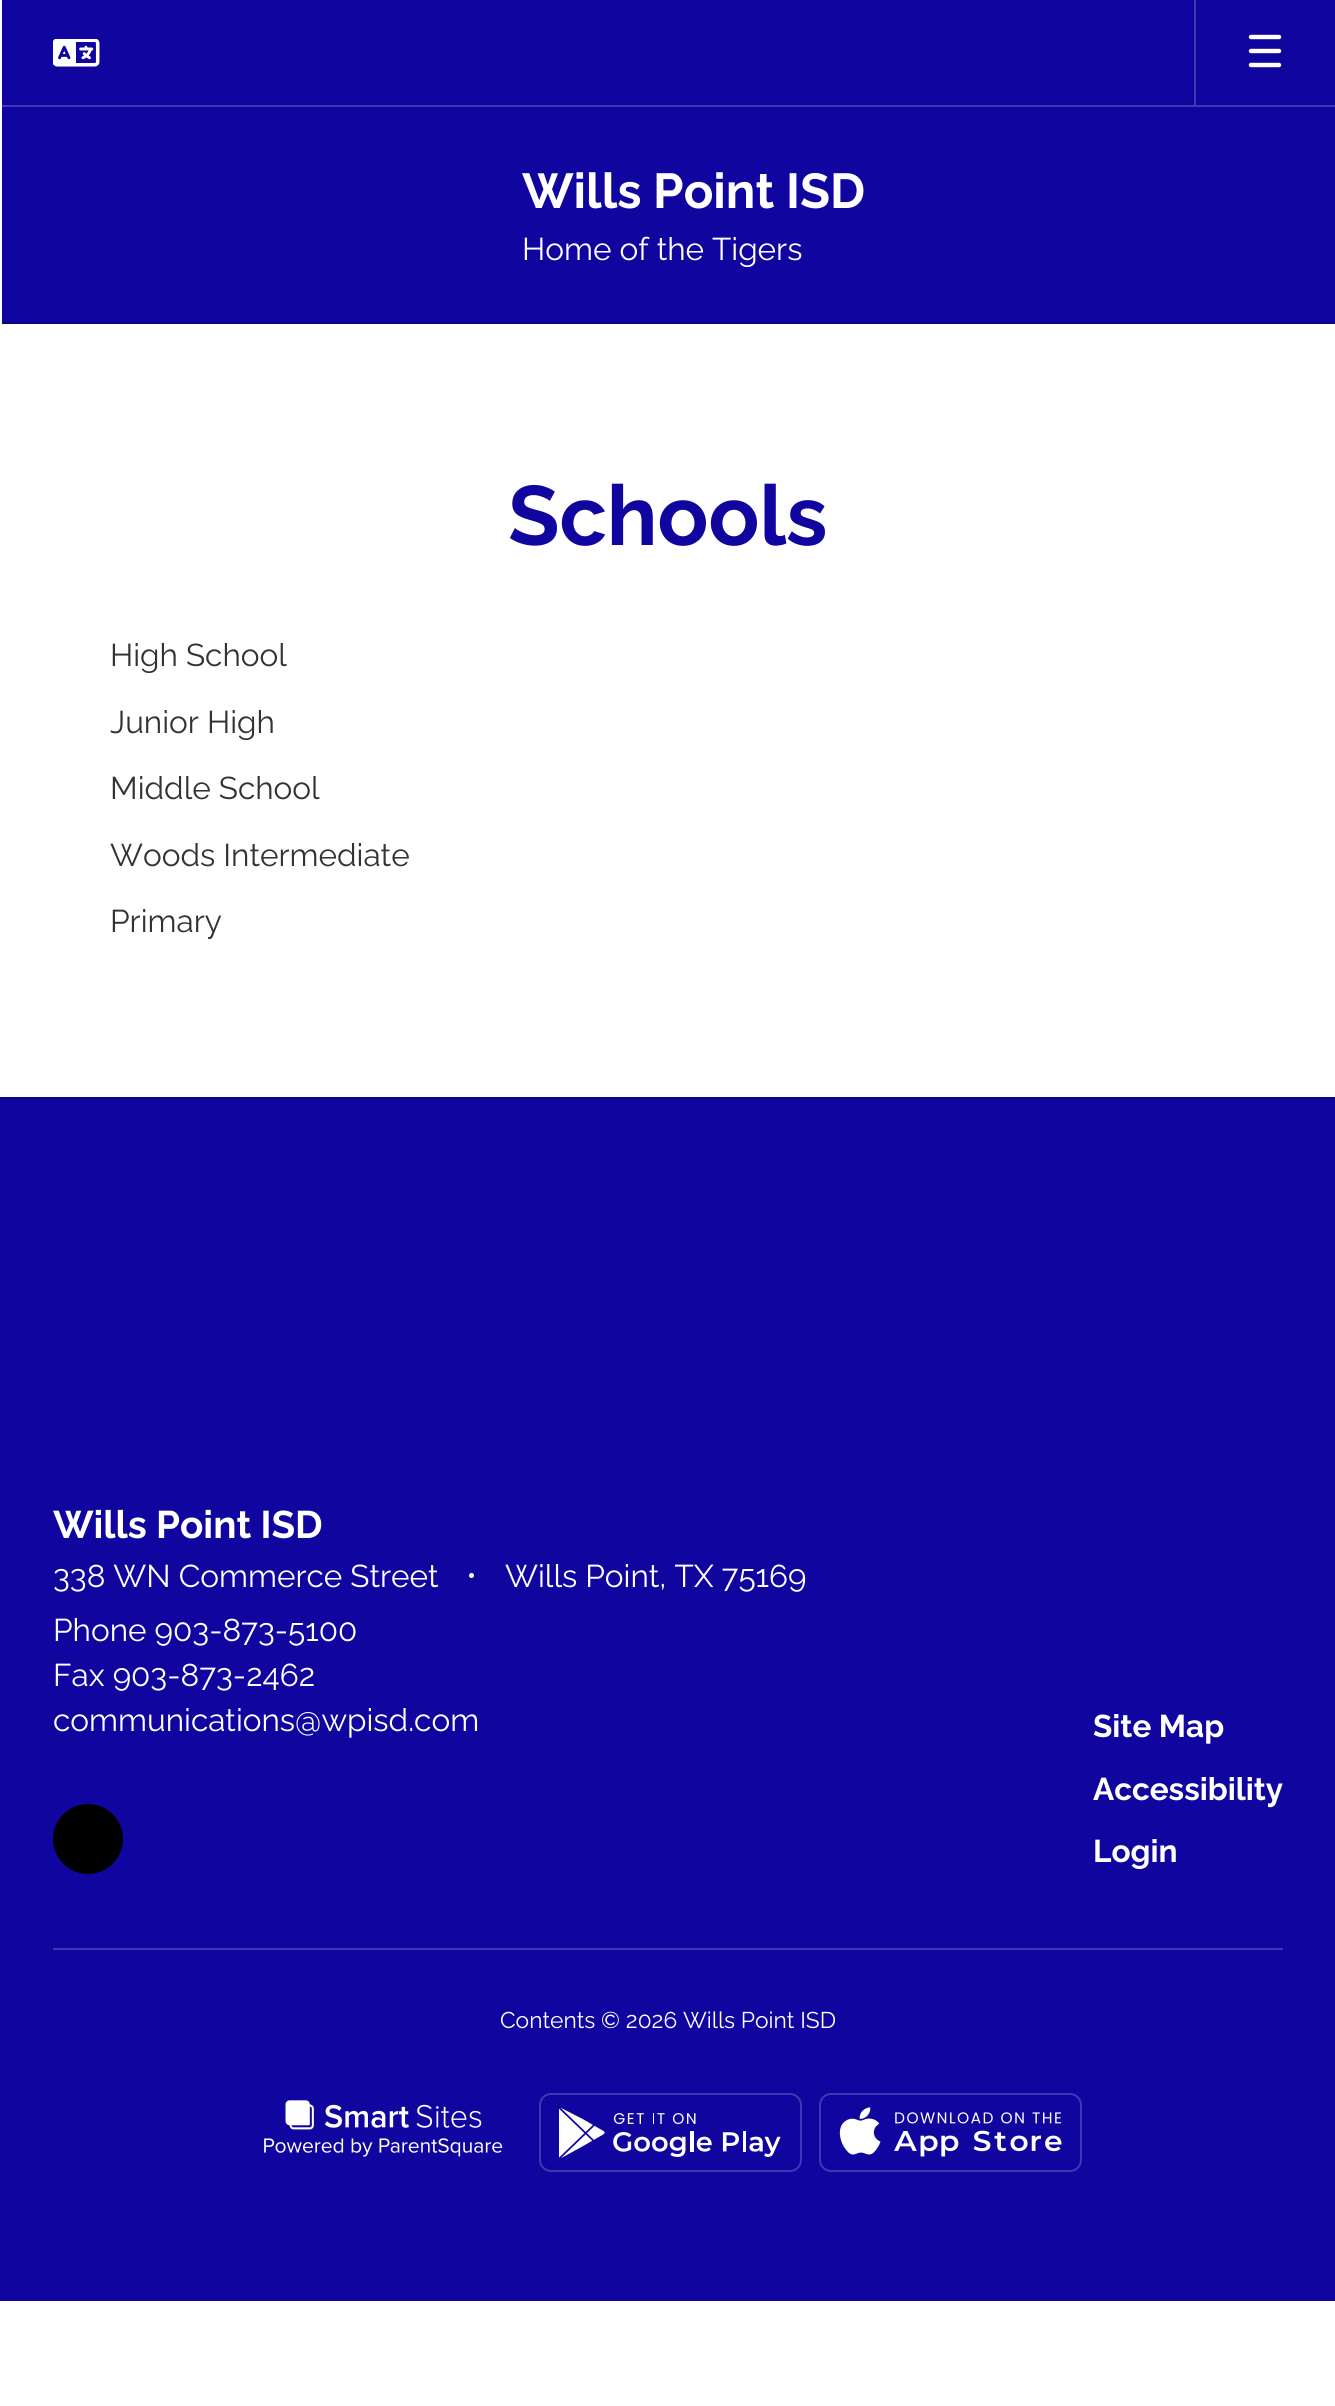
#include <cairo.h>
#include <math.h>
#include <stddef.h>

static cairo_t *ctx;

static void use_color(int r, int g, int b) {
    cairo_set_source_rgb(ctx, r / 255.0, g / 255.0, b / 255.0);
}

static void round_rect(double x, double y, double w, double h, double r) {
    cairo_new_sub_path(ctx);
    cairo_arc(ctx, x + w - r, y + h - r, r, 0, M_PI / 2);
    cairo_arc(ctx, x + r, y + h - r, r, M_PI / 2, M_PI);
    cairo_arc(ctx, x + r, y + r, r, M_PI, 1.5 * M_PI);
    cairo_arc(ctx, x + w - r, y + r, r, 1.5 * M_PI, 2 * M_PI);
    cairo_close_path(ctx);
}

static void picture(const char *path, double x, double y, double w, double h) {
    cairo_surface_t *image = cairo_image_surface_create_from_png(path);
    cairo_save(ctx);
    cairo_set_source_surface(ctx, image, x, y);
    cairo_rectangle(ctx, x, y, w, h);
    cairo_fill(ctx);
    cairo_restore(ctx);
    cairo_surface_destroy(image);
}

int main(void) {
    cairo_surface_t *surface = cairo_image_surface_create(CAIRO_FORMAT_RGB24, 1335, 2406);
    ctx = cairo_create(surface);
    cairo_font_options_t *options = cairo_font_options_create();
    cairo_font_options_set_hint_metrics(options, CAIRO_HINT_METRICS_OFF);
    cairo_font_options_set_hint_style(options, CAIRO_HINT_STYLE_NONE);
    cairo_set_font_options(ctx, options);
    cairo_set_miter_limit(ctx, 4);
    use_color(255, 255, 255);
    cairo_paint(ctx);
    use_color(16, 6, 159);
    cairo_rectangle(ctx, 2, 0, 1333, 322);
    cairo_fill(ctx);
    use_color(64, 56, 178);
    cairo_rectangle(ctx, 2, 105, 1333, 2);
    cairo_fill(ctx);
    picture("img1.png", 53, 39, 47, 28);
    cairo_rectangle(ctx, 1194, 0, 2, 105);
    cairo_fill(ctx);
    cairo_new_path(ctx);
    cairo_move_to(ctx, 1251, 37);
    cairo_line_to(ctx, 1279, 37);
    cairo_move_to(ctx, 1251, 51);
    cairo_line_to(ctx, 1279, 51);
    cairo_move_to(ctx, 1251, 65);
    cairo_line_to(ctx, 1279, 65);
    use_color(255, 255, 255);
    cairo_set_line_width(ctx, 4.4);
    cairo_set_line_cap(ctx, CAIRO_LINE_CAP_ROUND);
    cairo_stroke(ctx);
    cairo_select_font_face(ctx, "Raleway", CAIRO_FONT_SLANT_NORMAL, CAIRO_FONT_WEIGHT_BOLD);
    cairo_set_font_size(ctx, 49);
    cairo_move_to(ctx, 522, 208);
    cairo_show_text(ctx, "Wills Point ISD");
    cairo_select_font_face(ctx, "Raleway", CAIRO_FONT_SLANT_NORMAL, CAIRO_FONT_WEIGHT_NORMAL);
    cairo_set_font_size(ctx, 31.5);
    cairo_move_to(ctx, 522, 260);
    cairo_show_text(ctx, "Home of the Tigers");
    use_color(13, 5, 127);
    cairo_rectangle(ctx, 2, 322, 1333, 2);
    cairo_fill(ctx);
    cairo_select_font_face(ctx, "Raleway", CAIRO_FONT_SLANT_NORMAL, CAIRO_FONT_WEIGHT_BOLD);
    cairo_set_font_size(ctx, 84);
    use_color(16, 6, 159);
    cairo_move_to(ctx, 508, 545);
    cairo_show_text(ctx, "Schools");
    cairo_select_font_face(ctx, "Raleway", CAIRO_FONT_SLANT_NORMAL, CAIRO_FONT_WEIGHT_NORMAL);
    cairo_set_font_size(ctx, 31.5);
    use_color(51, 51, 51);
    cairo_move_to(ctx, 110, 666);
    cairo_show_text(ctx, "High School");
    cairo_move_to(ctx, 110, 733);
    cairo_show_text(ctx, "Junior High");
    cairo_move_to(ctx, 110, 799);
    cairo_show_text(ctx, "Middle School");
    cairo_move_to(ctx, 110, 866);
    cairo_show_text(ctx, "Woods Intermediate");
    cairo_move_to(ctx, 110, 932);
    cairo_show_text(ctx, "Primary");
    use_color(16, 6, 159);
    cairo_rectangle(ctx, 0, 1097, 1335, 1204);
    cairo_fill(ctx);
    use_color(13, 5, 127);
    cairo_rectangle(ctx, 2, 1097, 1333, 2);
    cairo_fill(ctx);
    cairo_select_font_face(ctx, "Raleway", CAIRO_FONT_SLANT_NORMAL, CAIRO_FONT_WEIGHT_BOLD);
    cairo_set_font_size(ctx, 38.5);
    use_color(255, 255, 255);
    cairo_move_to(ctx, 53, 1538);
    cairo_show_text(ctx, "Wills Point ISD");
    cairo_select_font_face(ctx, "Raleway", CAIRO_FONT_SLANT_NORMAL, CAIRO_FONT_WEIGHT_NORMAL);
    cairo_set_font_size(ctx, 31.5);
    cairo_move_to(ctx, 53, 1587);
    cairo_show_text(ctx, "338 WN Commerce Street");
    cairo_new_path(ctx);
    cairo_arc(ctx, 471.5, 1575.5, 2.5, 0, 2 * M_PI);
    cairo_fill(ctx);
    cairo_move_to(ctx, 505, 1587);
    cairo_show_text(ctx, "Wills Point, TX 75169");
    cairo_move_to(ctx, 53, 1641);
    cairo_show_text(ctx, "Phone 903-873-5100");
    cairo_move_to(ctx, 53, 1686);
    cairo_show_text(ctx, "Fax 903-873-2462");
    cairo_move_to(ctx, 53, 1731);
    cairo_show_text(ctx, "communications@wpisd.com");
    use_color(0, 0, 0);
    cairo_new_path(ctx);
    cairo_arc(ctx, 88, 1839, 35, 0, 2 * M_PI);
    cairo_fill(ctx);
    cairo_select_font_face(ctx, "Raleway", CAIRO_FONT_SLANT_NORMAL, CAIRO_FONT_WEIGHT_BOLD);
    use_color(255, 255, 255);
    cairo_move_to(ctx, 1093, 1737);
    cairo_show_text(ctx, "Site Map");
    cairo_move_to(ctx, 1093, 1800);
    cairo_show_text(ctx, "Accessibility");
    cairo_move_to(ctx, 1093, 1862);
    cairo_show_text(ctx, "Login");
    use_color(64, 56, 178);
    cairo_rectangle(ctx, 53, 1948, 1230, 2);
    cairo_fill(ctx);
    cairo_select_font_face(ctx, "Raleway", CAIRO_FONT_SLANT_NORMAL, CAIRO_FONT_WEIGHT_NORMAL);
    cairo_set_font_size(ctx, 22.75);
    use_color(255, 255, 255);
    cairo_move_to(ctx, 500, 2028);
    cairo_show_text(ctx, "Contents © 2026 Wills Point ISD");
    picture("img2.png", 264, 2100, 239, 57);
    round_rect(540, 2094, 261, 77, 11);
    use_color(64, 56, 178);
    cairo_set_line_width(ctx, 2);
    cairo_set_line_cap(ctx, CAIRO_LINE_CAP_BUTT);
    cairo_stroke(ctx);
    picture("img3.png", 559, 2107, 222, 51);
    round_rect(820, 2094, 261, 77, 11);
    cairo_stroke(ctx);
    picture("img4.png", 839, 2107, 223, 50);
    cairo_surface_write_to_png(surface, "result.png");
    cairo_font_options_destroy(options);
    cairo_destroy(ctx);
    cairo_surface_destroy(surface);
    return 0;
}
